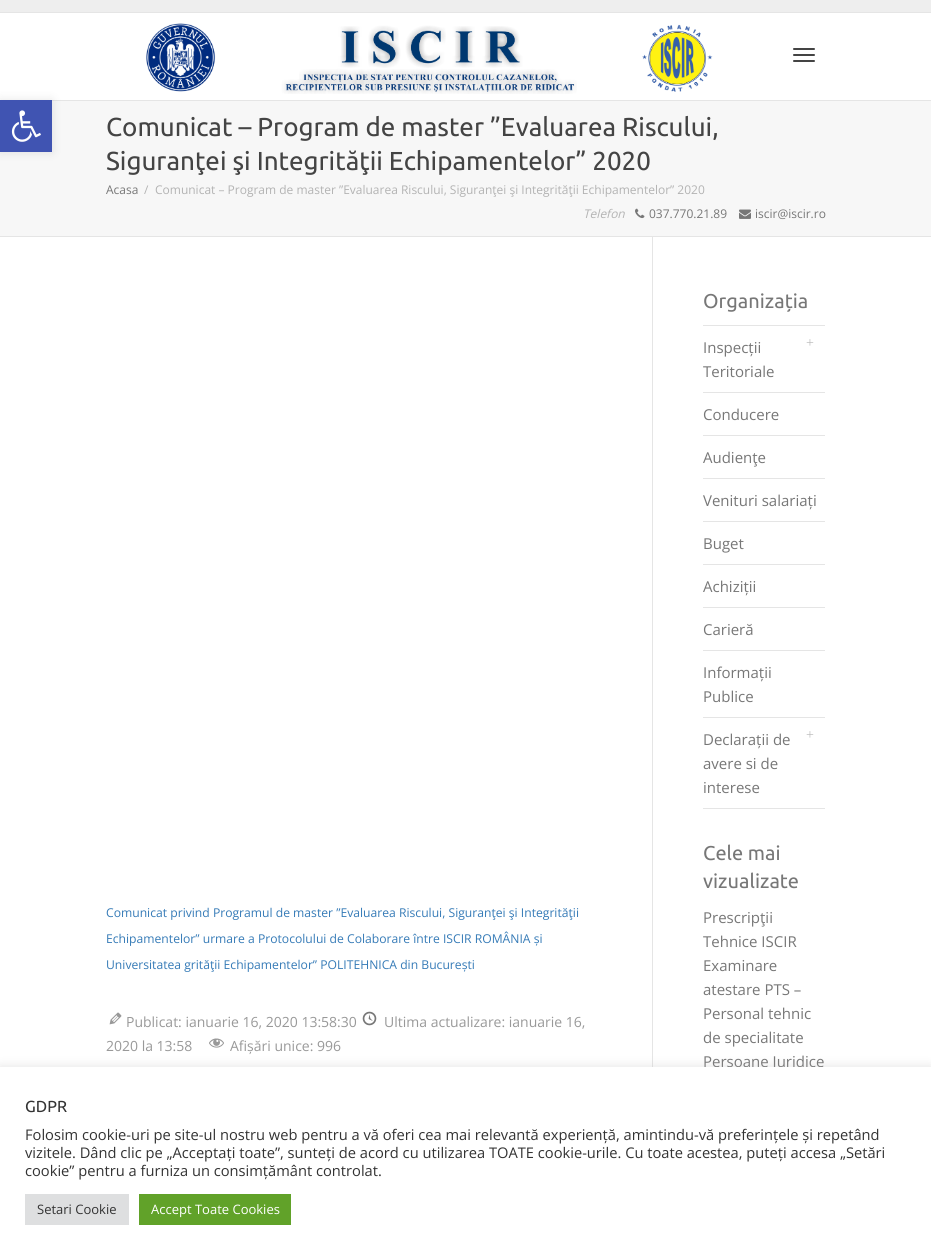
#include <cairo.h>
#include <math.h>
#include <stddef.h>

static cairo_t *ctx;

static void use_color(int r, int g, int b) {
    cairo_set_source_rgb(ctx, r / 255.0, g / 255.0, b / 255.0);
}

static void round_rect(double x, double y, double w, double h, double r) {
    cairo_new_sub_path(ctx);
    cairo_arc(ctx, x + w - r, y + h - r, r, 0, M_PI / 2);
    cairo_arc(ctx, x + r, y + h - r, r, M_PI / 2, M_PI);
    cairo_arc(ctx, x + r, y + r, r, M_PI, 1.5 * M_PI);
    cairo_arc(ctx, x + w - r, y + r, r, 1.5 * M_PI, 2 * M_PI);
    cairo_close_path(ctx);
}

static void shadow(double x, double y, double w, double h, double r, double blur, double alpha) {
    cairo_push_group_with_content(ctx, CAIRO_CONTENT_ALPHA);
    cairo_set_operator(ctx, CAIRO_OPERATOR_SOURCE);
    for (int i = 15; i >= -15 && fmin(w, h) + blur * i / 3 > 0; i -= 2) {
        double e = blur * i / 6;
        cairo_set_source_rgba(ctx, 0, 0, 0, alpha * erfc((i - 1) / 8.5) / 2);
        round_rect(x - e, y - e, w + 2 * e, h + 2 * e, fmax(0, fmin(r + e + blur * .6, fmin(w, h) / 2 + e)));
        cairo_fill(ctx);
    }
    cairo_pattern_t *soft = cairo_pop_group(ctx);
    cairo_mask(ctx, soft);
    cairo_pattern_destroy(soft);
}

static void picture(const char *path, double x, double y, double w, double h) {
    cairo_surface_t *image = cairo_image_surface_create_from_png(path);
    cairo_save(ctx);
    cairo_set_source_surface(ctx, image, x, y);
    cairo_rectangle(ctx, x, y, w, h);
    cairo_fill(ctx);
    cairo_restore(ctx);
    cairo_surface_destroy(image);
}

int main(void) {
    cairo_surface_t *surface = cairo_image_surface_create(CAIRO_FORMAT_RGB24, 931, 1255);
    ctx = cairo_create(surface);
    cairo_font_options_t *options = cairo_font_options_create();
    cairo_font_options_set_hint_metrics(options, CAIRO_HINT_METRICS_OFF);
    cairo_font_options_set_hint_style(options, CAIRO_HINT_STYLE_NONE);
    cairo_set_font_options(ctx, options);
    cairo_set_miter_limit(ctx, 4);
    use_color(255, 255, 255);
    cairo_paint(ctx);
    use_color(229, 229, 229);
    cairo_rectangle(ctx, 52, 100, 879, 1);
    cairo_fill(ctx);
    use_color(247, 247, 247);
    cairo_rectangle(ctx, 0, 101, 931, 135);
    cairo_fill(ctx);
    use_color(0, 0, 0);
    shadow(0, 100, 52, 52, 0, 5, 0.1);
    use_color(64, 84, 178);
    cairo_rectangle(ctx, 0, 100, 52, 52);
    cairo_fill(ctx);
    picture("img1.png", 11, 110, 30, 32);
    use_color(238, 238, 238);
    cairo_rectangle(ctx, 0, 0, 931, 12);
    cairo_fill(ctx);
    use_color(229, 229, 229);
    cairo_rectangle(ctx, 0, 12, 931, 1);
    cairo_fill(ctx);
    picture("img2.png", 146, 23, 567, 71);
    use_color(68, 68, 68);
    round_rect(793, 48, 22, 2, 1);
    cairo_fill(ctx);
    round_rect(793, 54, 22, 2, 1);
    cairo_fill(ctx);
    round_rect(793, 60, 22, 2, 1);
    cairo_fill(ctx);
    use_color(229, 229, 229);
    cairo_rectangle(ctx, 0, 236, 931, 1);
    cairo_fill(ctx);
    cairo_select_font_face(ctx, "Ubuntu", CAIRO_FONT_SLANT_NORMAL, CAIRO_FONT_WEIGHT_NORMAL);
    cairo_set_font_size(ctx, 26);
    use_color(68, 68, 68);
    cairo_move_to(ctx, 106, 136);
    cairo_show_text(ctx, "Comunicat – Program de master ”Evaluarea Riscului,");
    cairo_move_to(ctx, 106, 170);
    cairo_show_text(ctx, "Siguranţei şi Integrităţii Echipamentelor” 2020");
    cairo_select_font_face(ctx, "Open Sans", CAIRO_FONT_SLANT_NORMAL, CAIRO_FONT_WEIGHT_NORMAL);
    cairo_set_font_size(ctx, 12);
    use_color(119, 119, 119);
    cairo_move_to(ctx, 106, 194);
    cairo_show_text(ctx, "Acasa");
    use_color(179, 179, 179);
    cairo_move_to(ctx, 144, 194);
    cairo_show_text(ctx, "/");
    cairo_move_to(ctx, 155, 194);
    cairo_show_text(ctx, "Comunicat – Program de master ”Evaluarea Riscului, Siguranţei şi Integrităţii Echipamentelor” 2020");
    cairo_select_font_face(ctx, "Open Sans", CAIRO_FONT_SLANT_ITALIC, CAIRO_FONT_WEIGHT_NORMAL);
    cairo_move_to(ctx, 583, 218);
    cairo_show_text(ctx, "Telefon");
    picture("img3.png", 635, 208, 10, 11);
    cairo_select_font_face(ctx, "Open Sans", CAIRO_FONT_SLANT_NORMAL, CAIRO_FONT_WEIGHT_NORMAL);
    use_color(119, 119, 119);
    cairo_move_to(ctx, 649, 218);
    cairo_show_text(ctx, "037.770.21.89");
    picture("img4.png", 739, 209, 12, 10);
    cairo_move_to(ctx, 755, 218);
    cairo_show_text(ctx, "iscir@iscir.ro");
    use_color(229, 229, 229);
    cairo_rectangle(ctx, 652, 237, 1, 830);
    cairo_fill(ctx);
    cairo_set_font_size(ctx, 12.15);
    use_color(54, 123, 183);
    cairo_move_to(ctx, 106, 917);
    cairo_show_text(ctx, "Comunicat privind Programul de master ”Evaluarea Riscului, Siguranţei şi Integrităţii");
    cairo_move_to(ctx, 106, 943);
    cairo_show_text(ctx, "Echipamentelor” urmare a Protocolului de Colaborare între ISCIR ROMÂNIA și");
    cairo_move_to(ctx, 106, 969);
    cairo_show_text(ctx, "Universitatea grităţii Echipamentelor” POLITEHNICA din București");
    picture("img5.png", 362, 1011, 15, 15);
    cairo_set_font_size(ctx, 14);
    use_color(153, 153, 153);
    cairo_move_to(ctx, 384, 1027);
    cairo_show_text(ctx, "Ultima actualizare: ianuarie 16,");
    cairo_move_to(ctx, 106, 1051);
    cairo_show_text(ctx, "2020 la 13:58");
    picture("img6.png", 209, 1038, 15, 10);
    cairo_move_to(ctx, 230, 1051);
    cairo_show_text(ctx, "Afișări unice: 996");
    picture("img7.png", 109, 1012, 13, 13);
    cairo_move_to(ctx, 126, 1027);
    cairo_show_text(ctx, "Publicat: ianuarie 16, 2020 13:58:30");
    cairo_select_font_face(ctx, "Ubuntu", CAIRO_FONT_SLANT_NORMAL, CAIRO_FONT_WEIGHT_NORMAL);
    cairo_set_font_size(ctx, 20);
    use_color(119, 119, 119);
    cairo_move_to(ctx, 703, 308);
    cairo_show_text(ctx, "Organizația");
    use_color(229, 229, 229);
    cairo_rectangle(ctx, 703, 325, 122, 1);
    cairo_fill(ctx);
    cairo_rectangle(ctx, 703, 392, 122, 1);
    cairo_fill(ctx);
    cairo_select_font_face(ctx, "Open Sans", CAIRO_FONT_SLANT_NORMAL, CAIRO_FONT_WEIGHT_NORMAL);
    cairo_set_font_size(ctx, 15);
    use_color(119, 119, 119);
    cairo_move_to(ctx, 703, 353);
    cairo_show_text(ctx, "Inspecții");
    cairo_select_font_face(ctx, "Liberation Serif", CAIRO_FONT_SLANT_NORMAL, CAIRO_FONT_WEIGHT_NORMAL);
    cairo_set_font_size(ctx, 14);
    use_color(187, 187, 187);
    cairo_move_to(ctx, 806, 347);
    cairo_show_text(ctx, "+");
    cairo_select_font_face(ctx, "Open Sans", CAIRO_FONT_SLANT_NORMAL, CAIRO_FONT_WEIGHT_NORMAL);
    cairo_set_font_size(ctx, 15);
    use_color(119, 119, 119);
    cairo_move_to(ctx, 703, 377);
    cairo_show_text(ctx, "Teritoriale");
    use_color(229, 229, 229);
    cairo_rectangle(ctx, 703, 435, 122, 1);
    cairo_fill(ctx);
    use_color(119, 119, 119);
    cairo_move_to(ctx, 703, 420);
    cairo_show_text(ctx, "Conducere");
    use_color(229, 229, 229);
    cairo_rectangle(ctx, 703, 478, 122, 1);
    cairo_fill(ctx);
    use_color(119, 119, 119);
    cairo_move_to(ctx, 703, 463);
    cairo_show_text(ctx, "Audienţe");
    use_color(229, 229, 229);
    cairo_rectangle(ctx, 703, 521, 122, 1);
    cairo_fill(ctx);
    use_color(119, 119, 119);
    cairo_move_to(ctx, 703, 506);
    cairo_show_text(ctx, "Venituri salariați");
    use_color(229, 229, 229);
    cairo_rectangle(ctx, 703, 564, 122, 1);
    cairo_fill(ctx);
    use_color(119, 119, 119);
    cairo_move_to(ctx, 703, 549);
    cairo_show_text(ctx, "Buget");
    use_color(229, 229, 229);
    cairo_rectangle(ctx, 703, 607, 122, 1);
    cairo_fill(ctx);
    use_color(119, 119, 119);
    cairo_move_to(ctx, 703, 592);
    cairo_show_text(ctx, "Achiziții");
    use_color(229, 229, 229);
    cairo_rectangle(ctx, 703, 650, 122, 1);
    cairo_fill(ctx);
    use_color(119, 119, 119);
    cairo_move_to(ctx, 703, 635);
    cairo_show_text(ctx, "Carieră");
    use_color(229, 229, 229);
    cairo_rectangle(ctx, 703, 717, 122, 1);
    cairo_fill(ctx);
    use_color(119, 119, 119);
    cairo_move_to(ctx, 703, 678);
    cairo_show_text(ctx, "Informații");
    cairo_move_to(ctx, 703, 702);
    cairo_show_text(ctx, "Publice");
    use_color(229, 229, 229);
    cairo_rectangle(ctx, 703, 808, 122, 1);
    cairo_fill(ctx);
    use_color(119, 119, 119);
    cairo_move_to(ctx, 703, 745);
    cairo_show_text(ctx, "Declarații de");
    cairo_select_font_face(ctx, "Liberation Serif", CAIRO_FONT_SLANT_NORMAL, CAIRO_FONT_WEIGHT_NORMAL);
    cairo_set_font_size(ctx, 14);
    use_color(187, 187, 187);
    cairo_move_to(ctx, 806, 739);
    cairo_show_text(ctx, "+");
    cairo_select_font_face(ctx, "Open Sans", CAIRO_FONT_SLANT_NORMAL, CAIRO_FONT_WEIGHT_NORMAL);
    cairo_set_font_size(ctx, 15);
    use_color(119, 119, 119);
    cairo_move_to(ctx, 703, 769);
    cairo_show_text(ctx, "avere si de");
    cairo_move_to(ctx, 703, 793);
    cairo_show_text(ctx, "interese");
    cairo_select_font_face(ctx, "Ubuntu", CAIRO_FONT_SLANT_NORMAL, CAIRO_FONT_WEIGHT_NORMAL);
    cairo_set_font_size(ctx, 20);
    cairo_move_to(ctx, 703, 860);
    cairo_show_text(ctx, "Cele mai");
    cairo_move_to(ctx, 703, 888);
    cairo_show_text(ctx, "vizualizate");
    cairo_select_font_face(ctx, "Open Sans", CAIRO_FONT_SLANT_NORMAL, CAIRO_FONT_WEIGHT_NORMAL);
    cairo_set_font_size(ctx, 15);
    cairo_move_to(ctx, 703, 923);
    cairo_show_text(ctx, "Prescripţii");
    cairo_move_to(ctx, 703, 947);
    cairo_show_text(ctx, "Tehnice ISCIR");
    cairo_move_to(ctx, 703, 971);
    cairo_show_text(ctx, "Examinare");
    cairo_move_to(ctx, 703, 995);
    cairo_show_text(ctx, "atestare PTS –");
    cairo_move_to(ctx, 703, 1019);
    cairo_show_text(ctx, "Personal tehnic");
    cairo_move_to(ctx, 703, 1043);
    cairo_show_text(ctx, "de specialitate");
    cairo_move_to(ctx, 703, 1067);
    cairo_show_text(ctx, "Persoane Juridice");
    use_color(172, 171, 171);
    shadow(0, 1066, 931, 188, 0, 5, 0.3);
    use_color(255, 255, 255);
    cairo_rectangle(ctx, 0, 1067, 931, 188);
    cairo_fill(ctx);
    cairo_select_font_face(ctx, "Ubuntu", CAIRO_FONT_SLANT_NORMAL, CAIRO_FONT_WEIGHT_NORMAL);
    cairo_set_font_size(ctx, 16);
    use_color(51, 51, 51);
    cairo_move_to(ctx, 25, 1112);
    cairo_show_text(ctx, "GDPR");
    cairo_select_font_face(ctx, "Open Sans", CAIRO_FONT_SLANT_NORMAL, CAIRO_FONT_WEIGHT_NORMAL);
    cairo_set_font_size(ctx, 14.67);
    cairo_move_to(ctx, 25, 1140);
    cairo_show_text(ctx, "Folosim cookie-uri pe site-ul nostru web pentru a vă oferi cea mai relevantă experiență, amintindu-vă preferințele și repetând");
    cairo_move_to(ctx, 25, 1158);
    cairo_show_text(ctx, "vizitele. Dând clic pe „Acceptați toate”, sunteți de acord cu utilizarea TOATE cookie-urile. Cu toate acestea, puteți accesa „Setări");
    cairo_move_to(ctx, 25, 1176);
    cairo_show_text(ctx, "cookie” pentru a furniza un consimțământ controlat.");
    use_color(222, 223, 224);
    cairo_rectangle(ctx, 25, 1194, 104, 31);
    cairo_fill(ctx);
    cairo_set_font_size(ctx, 13);
    use_color(51, 51, 51);
    cairo_move_to(ctx, 37, 1214);
    cairo_show_text(ctx, "Setari Cookie");
    use_color(97, 162, 41);
    cairo_rectangle(ctx, 139, 1194, 152, 31);
    cairo_fill(ctx);
    use_color(255, 255, 255);
    cairo_move_to(ctx, 151, 1214);
    cairo_show_text(ctx, "Accept Toate Cookies");
    cairo_surface_write_to_png(surface, "result.png");
    cairo_font_options_destroy(options);
    cairo_destroy(ctx);
    cairo_surface_destroy(surface);
    return 0;
}
